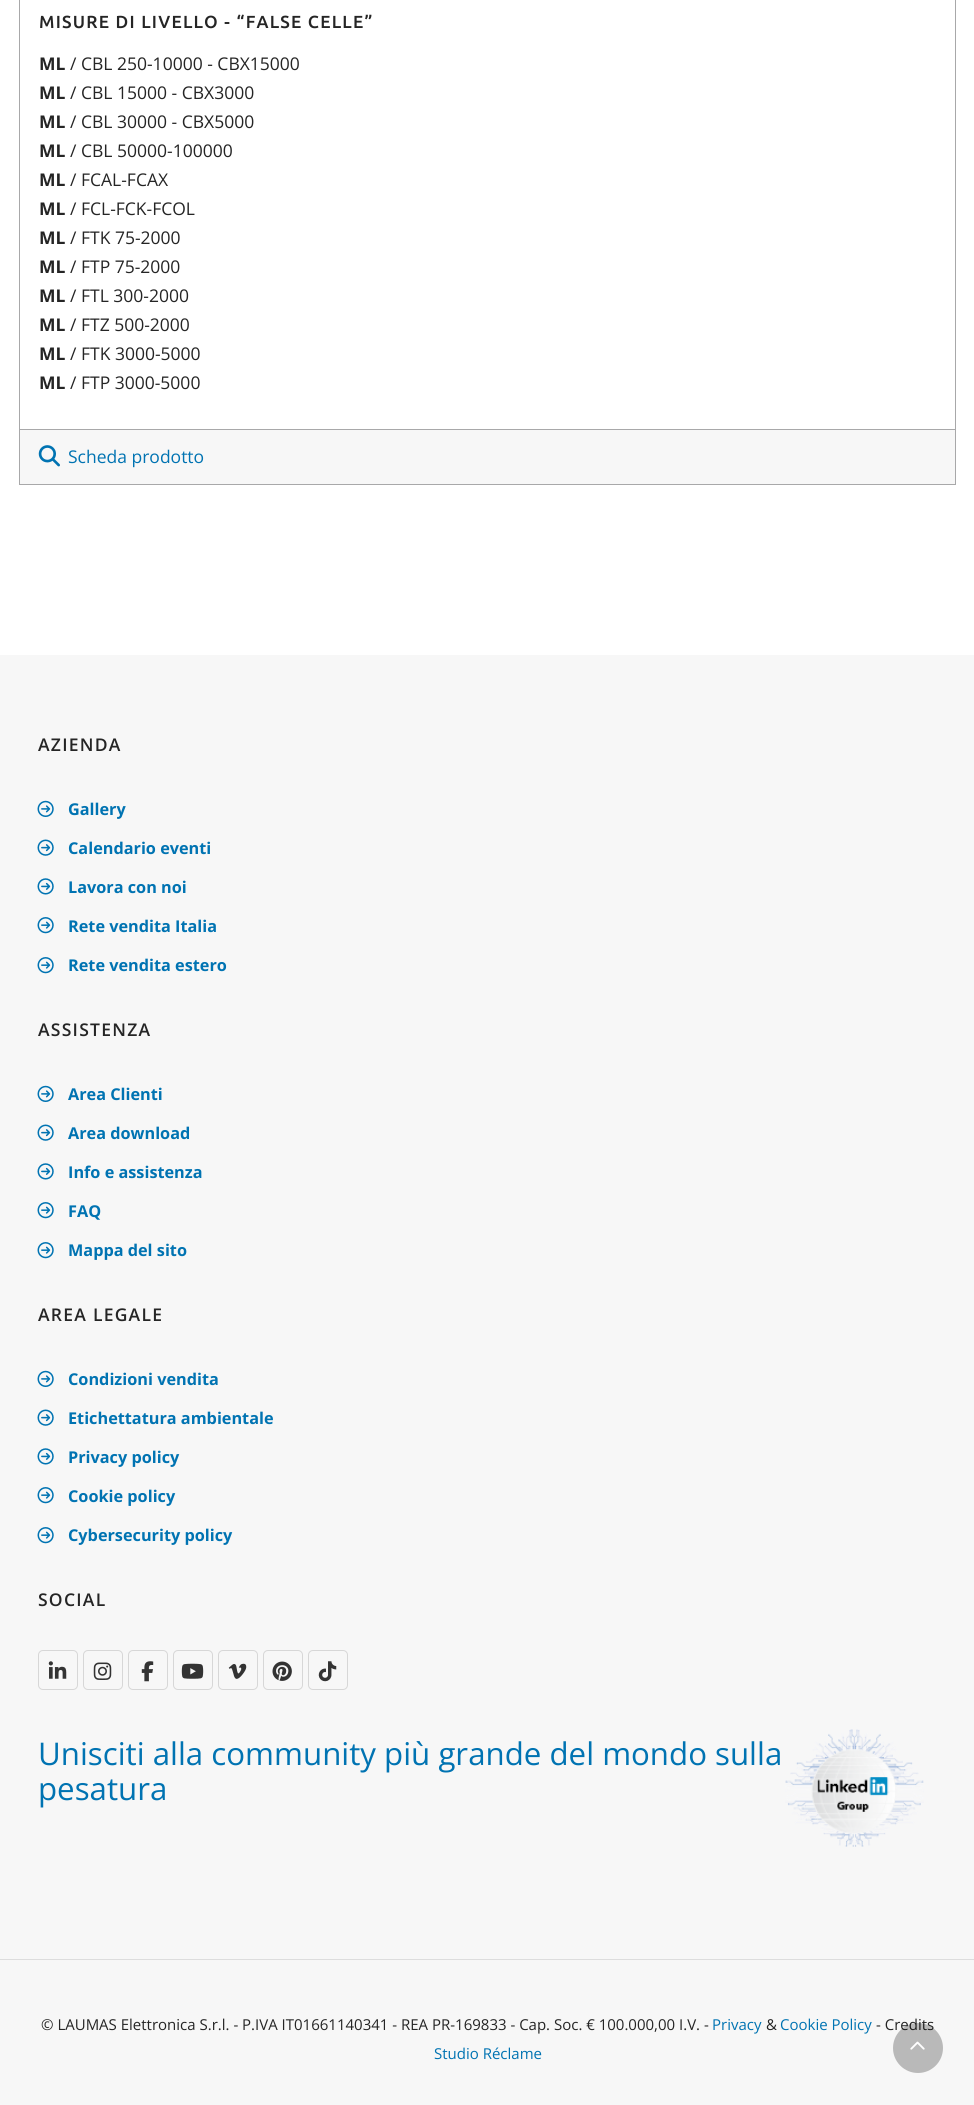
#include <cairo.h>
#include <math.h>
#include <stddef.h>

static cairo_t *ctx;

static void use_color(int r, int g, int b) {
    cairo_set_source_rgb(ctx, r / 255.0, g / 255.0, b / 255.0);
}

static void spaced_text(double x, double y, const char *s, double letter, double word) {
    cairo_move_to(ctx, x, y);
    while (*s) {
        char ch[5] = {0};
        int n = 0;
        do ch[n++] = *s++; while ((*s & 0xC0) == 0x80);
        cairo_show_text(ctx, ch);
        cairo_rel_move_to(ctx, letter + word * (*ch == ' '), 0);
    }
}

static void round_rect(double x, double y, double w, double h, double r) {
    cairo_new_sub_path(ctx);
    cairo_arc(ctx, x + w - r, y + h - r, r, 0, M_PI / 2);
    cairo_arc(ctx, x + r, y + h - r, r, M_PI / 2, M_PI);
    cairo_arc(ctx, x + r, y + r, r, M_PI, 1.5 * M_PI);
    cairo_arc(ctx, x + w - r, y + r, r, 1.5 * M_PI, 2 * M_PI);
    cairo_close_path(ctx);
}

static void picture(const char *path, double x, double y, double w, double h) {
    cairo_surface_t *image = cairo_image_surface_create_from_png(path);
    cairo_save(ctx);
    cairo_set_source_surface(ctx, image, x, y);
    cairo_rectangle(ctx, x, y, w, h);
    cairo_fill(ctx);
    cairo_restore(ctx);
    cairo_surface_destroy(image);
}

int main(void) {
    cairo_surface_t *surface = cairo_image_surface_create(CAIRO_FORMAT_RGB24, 974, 2105);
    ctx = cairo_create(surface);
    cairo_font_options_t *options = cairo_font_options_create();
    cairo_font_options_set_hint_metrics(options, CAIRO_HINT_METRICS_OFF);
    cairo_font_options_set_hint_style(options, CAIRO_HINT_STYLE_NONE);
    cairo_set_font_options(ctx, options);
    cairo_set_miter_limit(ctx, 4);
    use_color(255, 255, 255);
    cairo_paint(ctx);
    use_color(168, 168, 169);
    cairo_rectangle(ctx, 955, 0, 1, 429);
    cairo_fill(ctx);
    cairo_rectangle(ctx, 19, 0, 1, 429);
    cairo_fill(ctx);
    cairo_select_font_face(ctx, "Ubuntu Medium", CAIRO_FONT_SLANT_NORMAL, CAIRO_FONT_WEIGHT_NORMAL);
    cairo_set_font_size(ctx, 17.5);
    use_color(37, 37, 37);
    spaced_text(39, 28, "MISURE DI LIVELLO - “FALSE CELLE”", 1.25, 0);
    cairo_select_font_face(ctx, "Open Sans", CAIRO_FONT_SLANT_NORMAL, CAIRO_FONT_WEIGHT_BOLD);
    cairo_move_to(ctx, 39, 70);
    cairo_show_text(ctx, "ML");
    cairo_select_font_face(ctx, "Open Sans", CAIRO_FONT_SLANT_NORMAL, CAIRO_FONT_WEIGHT_NORMAL);
    cairo_move_to(ctx, 70, 70);
    cairo_show_text(ctx, "/ CBL 250-10000 - CBX15000");
    cairo_select_font_face(ctx, "Open Sans", CAIRO_FONT_SLANT_NORMAL, CAIRO_FONT_WEIGHT_BOLD);
    cairo_move_to(ctx, 39, 99);
    cairo_show_text(ctx, "ML");
    cairo_select_font_face(ctx, "Open Sans", CAIRO_FONT_SLANT_NORMAL, CAIRO_FONT_WEIGHT_NORMAL);
    cairo_move_to(ctx, 70, 99);
    cairo_show_text(ctx, "/ CBL 15000 - CBX3000");
    cairo_select_font_face(ctx, "Open Sans", CAIRO_FONT_SLANT_NORMAL, CAIRO_FONT_WEIGHT_BOLD);
    cairo_move_to(ctx, 39, 128);
    cairo_show_text(ctx, "ML");
    cairo_select_font_face(ctx, "Open Sans", CAIRO_FONT_SLANT_NORMAL, CAIRO_FONT_WEIGHT_NORMAL);
    cairo_move_to(ctx, 70, 128);
    cairo_show_text(ctx, "/ CBL 30000 - CBX5000");
    cairo_select_font_face(ctx, "Open Sans", CAIRO_FONT_SLANT_NORMAL, CAIRO_FONT_WEIGHT_BOLD);
    cairo_move_to(ctx, 39, 157);
    cairo_show_text(ctx, "ML");
    cairo_select_font_face(ctx, "Open Sans", CAIRO_FONT_SLANT_NORMAL, CAIRO_FONT_WEIGHT_NORMAL);
    cairo_move_to(ctx, 70, 157);
    cairo_show_text(ctx, "/ CBL 50000-100000");
    cairo_select_font_face(ctx, "Open Sans", CAIRO_FONT_SLANT_NORMAL, CAIRO_FONT_WEIGHT_BOLD);
    cairo_move_to(ctx, 39, 186);
    cairo_show_text(ctx, "ML");
    cairo_select_font_face(ctx, "Open Sans", CAIRO_FONT_SLANT_NORMAL, CAIRO_FONT_WEIGHT_NORMAL);
    cairo_move_to(ctx, 70, 186);
    cairo_show_text(ctx, "/ FCAL-FCAX");
    cairo_select_font_face(ctx, "Open Sans", CAIRO_FONT_SLANT_NORMAL, CAIRO_FONT_WEIGHT_BOLD);
    cairo_move_to(ctx, 39, 215);
    cairo_show_text(ctx, "ML");
    cairo_select_font_face(ctx, "Open Sans", CAIRO_FONT_SLANT_NORMAL, CAIRO_FONT_WEIGHT_NORMAL);
    cairo_move_to(ctx, 70, 215);
    cairo_show_text(ctx, "/ FCL-FCK-FCOL");
    cairo_select_font_face(ctx, "Open Sans", CAIRO_FONT_SLANT_NORMAL, CAIRO_FONT_WEIGHT_BOLD);
    cairo_move_to(ctx, 39, 244);
    cairo_show_text(ctx, "ML");
    cairo_select_font_face(ctx, "Open Sans", CAIRO_FONT_SLANT_NORMAL, CAIRO_FONT_WEIGHT_NORMAL);
    cairo_move_to(ctx, 70, 244);
    cairo_show_text(ctx, "/ FTK 75-2000");
    cairo_select_font_face(ctx, "Open Sans", CAIRO_FONT_SLANT_NORMAL, CAIRO_FONT_WEIGHT_BOLD);
    cairo_move_to(ctx, 39, 273);
    cairo_show_text(ctx, "ML");
    cairo_select_font_face(ctx, "Open Sans", CAIRO_FONT_SLANT_NORMAL, CAIRO_FONT_WEIGHT_NORMAL);
    cairo_move_to(ctx, 70, 273);
    cairo_show_text(ctx, "/ FTP 75-2000");
    cairo_select_font_face(ctx, "Open Sans", CAIRO_FONT_SLANT_NORMAL, CAIRO_FONT_WEIGHT_BOLD);
    cairo_move_to(ctx, 39, 302);
    cairo_show_text(ctx, "ML");
    cairo_select_font_face(ctx, "Open Sans", CAIRO_FONT_SLANT_NORMAL, CAIRO_FONT_WEIGHT_NORMAL);
    cairo_move_to(ctx, 70, 302);
    cairo_show_text(ctx, "/ FTL 300-2000");
    cairo_select_font_face(ctx, "Open Sans", CAIRO_FONT_SLANT_NORMAL, CAIRO_FONT_WEIGHT_BOLD);
    cairo_move_to(ctx, 39, 331);
    cairo_show_text(ctx, "ML");
    cairo_select_font_face(ctx, "Open Sans", CAIRO_FONT_SLANT_NORMAL, CAIRO_FONT_WEIGHT_NORMAL);
    cairo_move_to(ctx, 70, 331);
    cairo_show_text(ctx, "/ FTZ 500-2000");
    cairo_select_font_face(ctx, "Open Sans", CAIRO_FONT_SLANT_NORMAL, CAIRO_FONT_WEIGHT_BOLD);
    cairo_move_to(ctx, 39, 360);
    cairo_show_text(ctx, "ML");
    cairo_select_font_face(ctx, "Open Sans", CAIRO_FONT_SLANT_NORMAL, CAIRO_FONT_WEIGHT_NORMAL);
    cairo_move_to(ctx, 70, 360);
    cairo_show_text(ctx, "/ FTK 3000-5000");
    cairo_select_font_face(ctx, "Open Sans", CAIRO_FONT_SLANT_NORMAL, CAIRO_FONT_WEIGHT_BOLD);
    cairo_move_to(ctx, 39, 389);
    cairo_show_text(ctx, "ML");
    cairo_select_font_face(ctx, "Open Sans", CAIRO_FONT_SLANT_NORMAL, CAIRO_FONT_WEIGHT_NORMAL);
    cairo_move_to(ctx, 70, 389);
    cairo_show_text(ctx, "/ FTP 3000-5000");
    use_color(247, 247, 247);
    cairo_rectangle(ctx, 19.5, 429.5, 936, 55);
    cairo_fill_preserve(ctx);
    use_color(168, 168, 169);
    cairo_set_line_width(ctx, 1);
    cairo_stroke(ctx);
    picture("img1.png", 38, 445, 22, 22);
    use_color(0, 115, 178);
    cairo_move_to(ctx, 68, 463);
    cairo_show_text(ctx, "Scheda prodotto");
    use_color(247, 247, 247);
    cairo_rectangle(ctx, 0, 655, 974, 1450);
    cairo_fill(ctx);
    cairo_select_font_face(ctx, "Open Sans SemiBold", CAIRO_FONT_SLANT_NORMAL, CAIRO_FONT_WEIGHT_NORMAL);
    use_color(37, 37, 37);
    spaced_text(38, 751, "AZIENDA", 1.25, 0);
    picture("img2.png", 37, 800, 17, 17);
    cairo_select_font_face(ctx, "Open Sans", CAIRO_FONT_SLANT_NORMAL, CAIRO_FONT_WEIGHT_BOLD);
    cairo_set_font_size(ctx, 16.25);
    use_color(0, 115, 178);
    cairo_move_to(ctx, 68, 815);
    cairo_show_text(ctx, "Gallery");
    picture("img3.png", 37, 839, 17, 17);
    cairo_move_to(ctx, 68, 854);
    cairo_show_text(ctx, "Calendario eventi");
    picture("img4.png", 37, 878, 17, 17);
    cairo_move_to(ctx, 68, 893);
    cairo_show_text(ctx, "Lavora con noi");
    picture("img5.png", 37, 917, 17, 17);
    cairo_move_to(ctx, 68, 932);
    cairo_show_text(ctx, "Rete vendita Italia");
    picture("img5.png", 37, 957, 17, 17);
    cairo_move_to(ctx, 68, 971);
    cairo_show_text(ctx, "Rete vendita estero");
    cairo_select_font_face(ctx, "Open Sans SemiBold", CAIRO_FONT_SLANT_NORMAL, CAIRO_FONT_WEIGHT_NORMAL);
    cairo_set_font_size(ctx, 17.5);
    use_color(37, 37, 37);
    spaced_text(38, 1036, "ASSISTENZA", 1.25, 0);
    picture("img2.png", 37, 1085, 17, 17);
    cairo_select_font_face(ctx, "Open Sans", CAIRO_FONT_SLANT_NORMAL, CAIRO_FONT_WEIGHT_BOLD);
    cairo_set_font_size(ctx, 16.25);
    use_color(0, 115, 178);
    cairo_move_to(ctx, 68, 1100);
    cairo_show_text(ctx, "Area Clienti");
    picture("img3.png", 37, 1124, 17, 17);
    cairo_move_to(ctx, 68, 1139);
    cairo_show_text(ctx, "Area download");
    picture("img4.png", 37, 1163, 17, 17);
    cairo_move_to(ctx, 68, 1178);
    cairo_show_text(ctx, "Info e assistenza");
    picture("img5.png", 37, 1202, 17, 17);
    cairo_move_to(ctx, 68, 1217);
    cairo_show_text(ctx, "FAQ");
    picture("img5.png", 37, 1242, 17, 17);
    cairo_move_to(ctx, 68, 1256);
    cairo_show_text(ctx, "Mappa del sito");
    cairo_select_font_face(ctx, "Open Sans SemiBold", CAIRO_FONT_SLANT_NORMAL, CAIRO_FONT_WEIGHT_NORMAL);
    cairo_set_font_size(ctx, 17.5);
    use_color(37, 37, 37);
    spaced_text(38, 1321, "AREA LEGALE", 1.25, 0);
    picture("img2.png", 37, 1370, 17, 17);
    cairo_select_font_face(ctx, "Open Sans", CAIRO_FONT_SLANT_NORMAL, CAIRO_FONT_WEIGHT_BOLD);
    cairo_set_font_size(ctx, 16.25);
    use_color(0, 115, 178);
    cairo_move_to(ctx, 68, 1385);
    cairo_show_text(ctx, "Condizioni vendita");
    picture("img3.png", 37, 1409, 17, 17);
    cairo_move_to(ctx, 68, 1424);
    cairo_show_text(ctx, "Etichettatura ambientale");
    picture("img4.png", 37, 1448, 17, 17);
    cairo_move_to(ctx, 68, 1463);
    cairo_show_text(ctx, "Privacy policy");
    picture("img5.png", 37, 1487, 17, 17);
    cairo_move_to(ctx, 68, 1502);
    cairo_show_text(ctx, "Cookie policy");
    picture("img5.png", 37, 1527, 17, 17);
    cairo_move_to(ctx, 68, 1541);
    cairo_show_text(ctx, "Cybersecurity policy");
    cairo_select_font_face(ctx, "Open Sans SemiBold", CAIRO_FONT_SLANT_NORMAL, CAIRO_FONT_WEIGHT_NORMAL);
    cairo_set_font_size(ctx, 17.5);
    use_color(37, 37, 37);
    spaced_text(38, 1606, "SOCIAL", 1.25, 0);
    round_rect(38.5, 1650.5, 39, 39, 4.5);
    use_color(215, 215, 215);
    cairo_stroke(ctx);
    picture("img6.png", 48, 1661, 19, 18);
    round_rect(83.5, 1650.5, 39, 39, 4.5);
    cairo_stroke(ctx);
    picture("img7.png", 93, 1662, 19, 18);
    round_rect(128.5, 1650.5, 39, 39, 4.5);
    cairo_stroke(ctx);
    picture("img8.png", 141, 1661, 13, 21);
    round_rect(173.5, 1650.5, 39, 39, 4.5);
    cairo_stroke(ctx);
    picture("img9.png", 181, 1663, 23, 16);
    round_rect(218.5, 1650.5, 39, 39, 4.5);
    cairo_stroke(ctx);
    picture("img10.png", 228, 1663, 19, 16);
    round_rect(263.5, 1650.5, 39, 39, 4.5);
    cairo_stroke(ctx);
    picture("img11.png", 272, 1661, 20, 20);
    round_rect(308.5, 1650.5, 39, 39, 4.5);
    cairo_stroke(ctx);
    picture("img12.png", 318, 1661, 19, 21);
    picture("img13.png", 785, 1729, 139, 118);
    cairo_select_font_face(ctx, "Open Sans", CAIRO_FONT_SLANT_NORMAL, CAIRO_FONT_WEIGHT_NORMAL);
    cairo_set_font_size(ctx, 31.25);
    use_color(0, 115, 178);
    cairo_move_to(ctx, 38, 1765);
    cairo_show_text(ctx, "Unisciti alla community più grande del mondo sulla");
    cairo_move_to(ctx, 38, 1800);
    cairo_show_text(ctx, "pesatura");
    use_color(221, 221, 221);
    cairo_rectangle(ctx, 0, 1959, 974, 1);
    cairo_fill(ctx);
    cairo_set_font_size(ctx, 15);
    use_color(37, 37, 37);
    cairo_move_to(ctx, 41, 2030);
    cairo_show_text(ctx, "© LAUMAS Elettronica S.r.l. - P.IVA IT01661140341 - REA PR-169833 - Cap. Soc. € 100.000,00 I.V. -");
    use_color(0, 115, 178);
    cairo_move_to(ctx, 712, 2030);
    cairo_show_text(ctx, "Privacy");
    use_color(37, 37, 37);
    cairo_move_to(ctx, 766, 2030);
    cairo_show_text(ctx, "&");
    use_color(0, 115, 178);
    cairo_move_to(ctx, 780, 2030);
    cairo_show_text(ctx, "Cookie Policy");
    use_color(37, 37, 37);
    cairo_move_to(ctx, 876, 2030);
    cairo_show_text(ctx, "- Credits");
    use_color(0, 115, 178);
    cairo_move_to(ctx, 434, 2059);
    cairo_show_text(ctx, "Studio Réclame");
    cairo_set_source_rgba(ctx, 0, 0, 0, 0.25);
    cairo_new_path(ctx);
    cairo_arc(ctx, 918, 2048, 25, 0, 2 * M_PI);
    cairo_fill(ctx);
    picture("img14.png", 910, 2041, 15, 9);
    cairo_surface_write_to_png(surface, "result.png");
    cairo_font_options_destroy(options);
    cairo_destroy(ctx);
    cairo_surface_destroy(surface);
    return 0;
}
